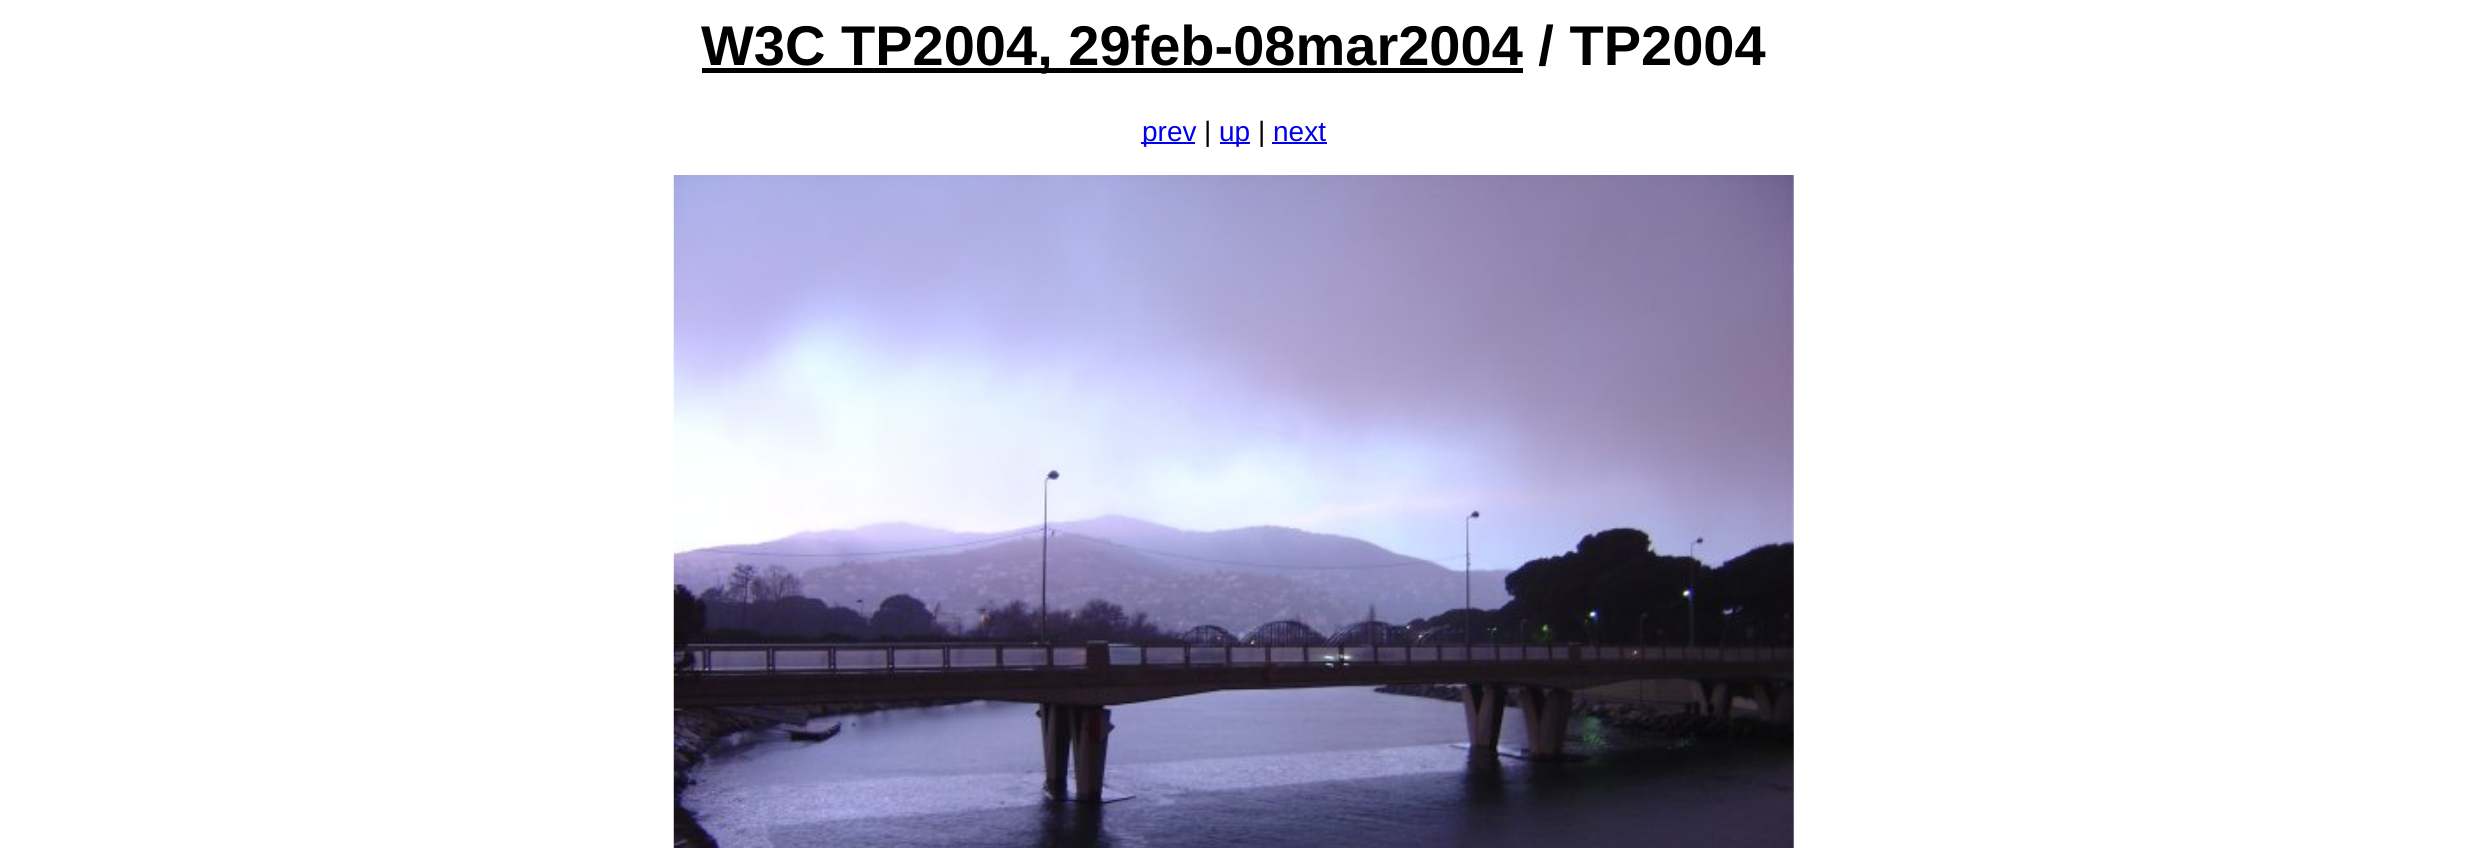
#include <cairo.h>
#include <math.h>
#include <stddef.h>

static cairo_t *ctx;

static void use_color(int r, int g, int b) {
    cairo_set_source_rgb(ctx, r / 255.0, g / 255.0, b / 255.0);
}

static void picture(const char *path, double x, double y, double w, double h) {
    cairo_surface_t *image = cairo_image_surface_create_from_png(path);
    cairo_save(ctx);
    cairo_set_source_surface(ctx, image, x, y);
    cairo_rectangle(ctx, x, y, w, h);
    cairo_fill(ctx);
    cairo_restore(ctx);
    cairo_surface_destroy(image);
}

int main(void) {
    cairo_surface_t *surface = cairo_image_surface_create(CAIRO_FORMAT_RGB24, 2467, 848);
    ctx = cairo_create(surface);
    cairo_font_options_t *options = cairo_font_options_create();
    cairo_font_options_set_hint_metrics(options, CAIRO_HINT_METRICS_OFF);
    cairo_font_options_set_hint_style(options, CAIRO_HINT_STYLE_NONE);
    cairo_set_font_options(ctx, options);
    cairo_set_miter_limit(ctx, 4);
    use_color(255, 255, 255);
    cairo_paint(ctx);
    use_color(0, 0, 0);
    cairo_rectangle(ctx, 702, 68, 821, 5);
    cairo_fill(ctx);
    cairo_select_font_face(ctx, "Liberation Sans", CAIRO_FONT_SLANT_NORMAL, CAIRO_FONT_WEIGHT_BOLD);
    cairo_set_font_size(ctx, 56);
    cairo_move_to(ctx, 701, 65);
    cairo_show_text(ctx, "W3C TP2004, 29feb-08mar2004 / TP2004");
    use_color(0, 0, 238);
    cairo_rectangle(ctx, 1141, 142, 54, 2);
    cairo_fill(ctx);
    cairo_select_font_face(ctx, "Liberation Sans", CAIRO_FONT_SLANT_NORMAL, CAIRO_FONT_WEIGHT_NORMAL);
    cairo_set_font_size(ctx, 28);
    cairo_move_to(ctx, 1142, 141);
    cairo_show_text(ctx, "prev");
    use_color(0, 0, 0);
    cairo_move_to(ctx, 1204, 141);
    cairo_show_text(ctx, "|");
    use_color(0, 0, 238);
    cairo_rectangle(ctx, 1220, 142, 30, 2);
    cairo_fill(ctx);
    cairo_move_to(ctx, 1219, 141);
    cairo_show_text(ctx, "up");
    use_color(0, 0, 0);
    cairo_move_to(ctx, 1258, 141);
    cairo_show_text(ctx, "|");
    use_color(0, 0, 238);
    cairo_move_to(ctx, 1273, 141);
    cairo_show_text(ctx, "next");
    cairo_rectangle(ctx, 1272, 142, 55, 2);
    cairo_fill(ctx);
    picture("img1.png", 673, 175, 1121, 673);
    cairo_surface_write_to_png(surface, "result.png");
    cairo_font_options_destroy(options);
    cairo_destroy(ctx);
    cairo_surface_destroy(surface);
    return 0;
}
